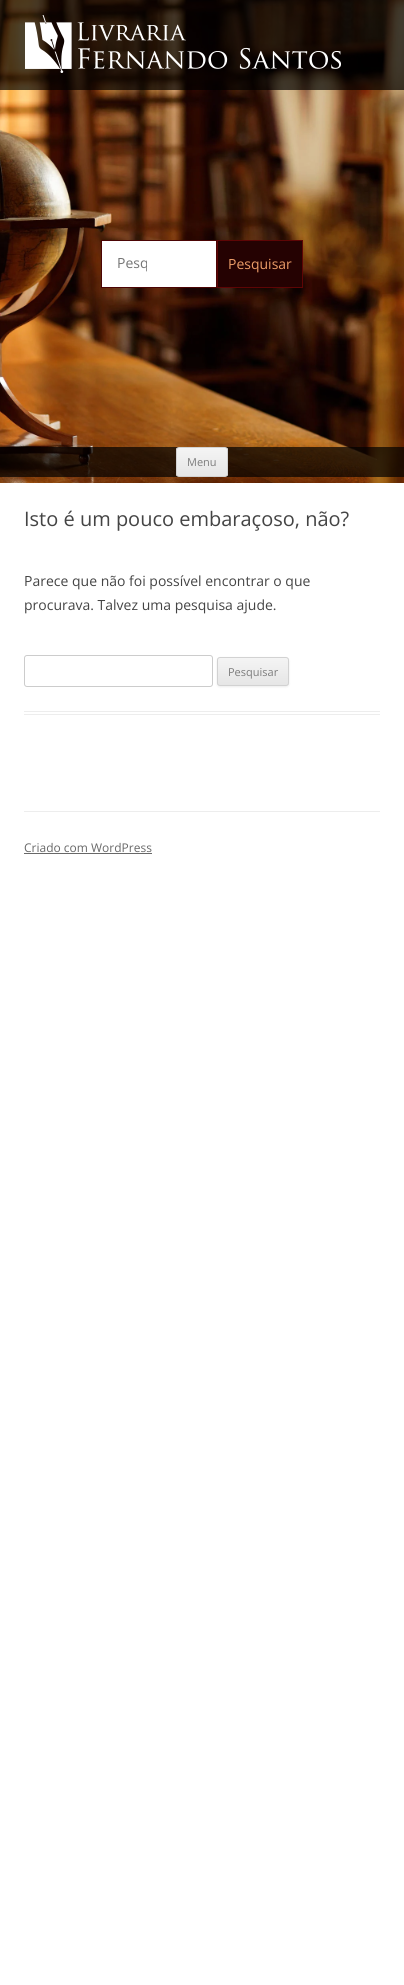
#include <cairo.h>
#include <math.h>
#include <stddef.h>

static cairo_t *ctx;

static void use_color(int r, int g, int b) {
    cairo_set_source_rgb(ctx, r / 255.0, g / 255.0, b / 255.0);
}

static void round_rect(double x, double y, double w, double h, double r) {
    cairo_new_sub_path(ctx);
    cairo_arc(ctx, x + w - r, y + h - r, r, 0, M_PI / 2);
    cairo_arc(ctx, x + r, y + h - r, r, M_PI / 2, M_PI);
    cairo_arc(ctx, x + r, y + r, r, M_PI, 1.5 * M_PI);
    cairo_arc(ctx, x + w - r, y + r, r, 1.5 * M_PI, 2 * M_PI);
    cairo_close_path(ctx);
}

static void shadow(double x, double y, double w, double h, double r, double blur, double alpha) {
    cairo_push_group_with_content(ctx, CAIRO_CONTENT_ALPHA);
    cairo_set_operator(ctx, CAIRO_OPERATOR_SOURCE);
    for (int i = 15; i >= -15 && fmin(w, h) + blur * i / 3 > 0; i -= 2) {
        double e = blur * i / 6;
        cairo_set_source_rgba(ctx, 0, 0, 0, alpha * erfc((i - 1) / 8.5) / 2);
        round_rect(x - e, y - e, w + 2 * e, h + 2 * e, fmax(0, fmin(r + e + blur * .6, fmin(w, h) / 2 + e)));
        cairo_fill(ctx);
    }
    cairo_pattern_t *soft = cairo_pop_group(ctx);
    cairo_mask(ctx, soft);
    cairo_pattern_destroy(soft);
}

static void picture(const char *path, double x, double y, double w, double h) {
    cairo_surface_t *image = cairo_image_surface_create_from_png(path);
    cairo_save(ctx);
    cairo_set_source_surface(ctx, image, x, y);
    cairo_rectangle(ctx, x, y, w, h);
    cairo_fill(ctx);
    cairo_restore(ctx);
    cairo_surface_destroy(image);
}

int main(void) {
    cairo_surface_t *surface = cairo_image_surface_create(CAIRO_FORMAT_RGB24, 404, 1985);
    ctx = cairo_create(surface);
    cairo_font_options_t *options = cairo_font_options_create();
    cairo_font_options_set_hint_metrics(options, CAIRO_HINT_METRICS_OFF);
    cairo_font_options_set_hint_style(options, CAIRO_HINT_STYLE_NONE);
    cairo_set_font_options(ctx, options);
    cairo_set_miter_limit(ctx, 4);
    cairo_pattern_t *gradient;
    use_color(255, 255, 255);
    cairo_paint(ctx);
    picture("img1.png", 0, 0, 404, 483);
    cairo_set_source_rgba(ctx, 0, 0, 0, 0.7);
    cairo_rectangle(ctx, 0, 0, 404, 90);
    cairo_fill(ctx);
    picture("img2.png", 25, 15, 316, 58);
    use_color(255, 255, 255);
    cairo_rectangle(ctx, 101.5, 240.5, 115, 47);
    cairo_fill_preserve(ctx);
    use_color(75, 4, 4);
    cairo_set_line_width(ctx, 1);
    cairo_stroke(ctx);
    cairo_save(ctx);
    cairo_rectangle(ctx, 117, 253, 30, 19);
    cairo_clip(ctx);
    cairo_select_font_face(ctx, "Open Sans", CAIRO_FONT_SLANT_NORMAL, CAIRO_FONT_WEIGHT_NORMAL);
    cairo_set_font_size(ctx, 14);
    use_color(117, 117, 117);
    cairo_move_to(ctx, 117, 268);
    cairo_show_text(ctx, "Pesq");
    cairo_restore(ctx);
    use_color(37, 2, 2);
    cairo_rectangle(ctx, 217.5, 240.5, 85, 47);
    cairo_fill_preserve(ctx);
    use_color(94, 5, 5);
    cairo_stroke(ctx);
    cairo_select_font_face(ctx, "Open Sans", CAIRO_FONT_SLANT_NORMAL, CAIRO_FONT_WEIGHT_NORMAL);
    cairo_set_font_size(ctx, 14);
    use_color(236, 157, 104);
    cairo_move_to(ctx, 228, 269);
    cairo_show_text(ctx, "Pesquisar");
    cairo_set_source_rgba(ctx, 0, 0, 0, 0.7);
    cairo_rectangle(ctx, 0, 447, 404, 30);
    cairo_fill(ctx);
    cairo_save(ctx);
    round_rect(176, 447, 52, 30, 3);
    cairo_clip(ctx);
    gradient = cairo_pattern_create_linear(202, 448, 202, 476);
    cairo_pattern_add_color_stop_rgba(gradient, 0, 0.957, 0.957, 0.957, 1);
    cairo_pattern_add_color_stop_rgba(gradient, 1, 0.902, 0.902, 0.902, 1);
    cairo_set_source(ctx, gradient);
    cairo_pattern_destroy(gradient);
    cairo_rectangle(ctx, 176, 448, 52, 28);
    cairo_fill(ctx);
    cairo_restore(ctx);
    round_rect(176.5, 447.5, 51, 29, 2.5);
    use_color(210, 210, 210);
    cairo_stroke(ctx);
    cairo_set_font_size(ctx, 11);
    use_color(124, 124, 124);
    cairo_move_to(ctx, 187, 466);
    cairo_show_text(ctx, "Menu");
    use_color(237, 237, 237);
    cairo_rectangle(ctx, 24, 711, 356, 1);
    cairo_fill(ctx);
    cairo_rectangle(ctx, 24, 714, 356, 1);
    cairo_fill(ctx);
    cairo_set_font_size(ctx, 20);
    use_color(68, 68, 68);
    cairo_move_to(ctx, 24, 526);
    cairo_show_text(ctx, "Isto é um pouco embaraçoso, não?");
    cairo_set_font_size(ctx, 14);
    cairo_move_to(ctx, 24, 586);
    cairo_show_text(ctx, "Parece que não foi possível encontrar o que");
    cairo_move_to(ctx, 24, 610);
    cairo_show_text(ctx, "procurava. Talvez uma pesquisa ajude.");
    round_rect(24.5, 655.5, 188, 31, 2.5);
    use_color(204, 204, 204);
    cairo_stroke(ctx);
    use_color(64, 64, 64);
    shadow(217, 658, 72, 29, 3, 1, 0.1);
    cairo_save(ctx);
    round_rect(217, 657, 72, 29, 3);
    cairo_clip(ctx);
    gradient = cairo_pattern_create_linear(253, 658, 253, 685);
    cairo_pattern_add_color_stop_rgba(gradient, 0, 0.957, 0.957, 0.957, 1);
    cairo_pattern_add_color_stop_rgba(gradient, 1, 0.902, 0.902, 0.902, 1);
    cairo_set_source(ctx, gradient);
    cairo_pattern_destroy(gradient);
    cairo_rectangle(ctx, 217, 658, 72, 27);
    cairo_fill(ctx);
    cairo_restore(ctx);
    round_rect(217.5, 657.5, 71, 28, 2.5);
    use_color(210, 210, 210);
    cairo_stroke(ctx);
    cairo_set_font_size(ctx, 11);
    use_color(124, 124, 124);
    cairo_move_to(ctx, 228, 676);
    cairo_show_text(ctx, "Pesquisar");
    use_color(237, 237, 237);
    cairo_rectangle(ctx, 24, 811, 356, 1);
    cairo_fill(ctx);
    cairo_set_font_size(ctx, 12);
    use_color(104, 104, 104);
    cairo_move_to(ctx, 24, 852);
    cairo_show_text(ctx, "Criado com WordPress");
    cairo_rectangle(ctx, 24, 853, 128, 1);
    cairo_fill(ctx);
    cairo_surface_write_to_png(surface, "result.png");
    cairo_font_options_destroy(options);
    cairo_destroy(ctx);
    cairo_surface_destroy(surface);
    return 0;
}
